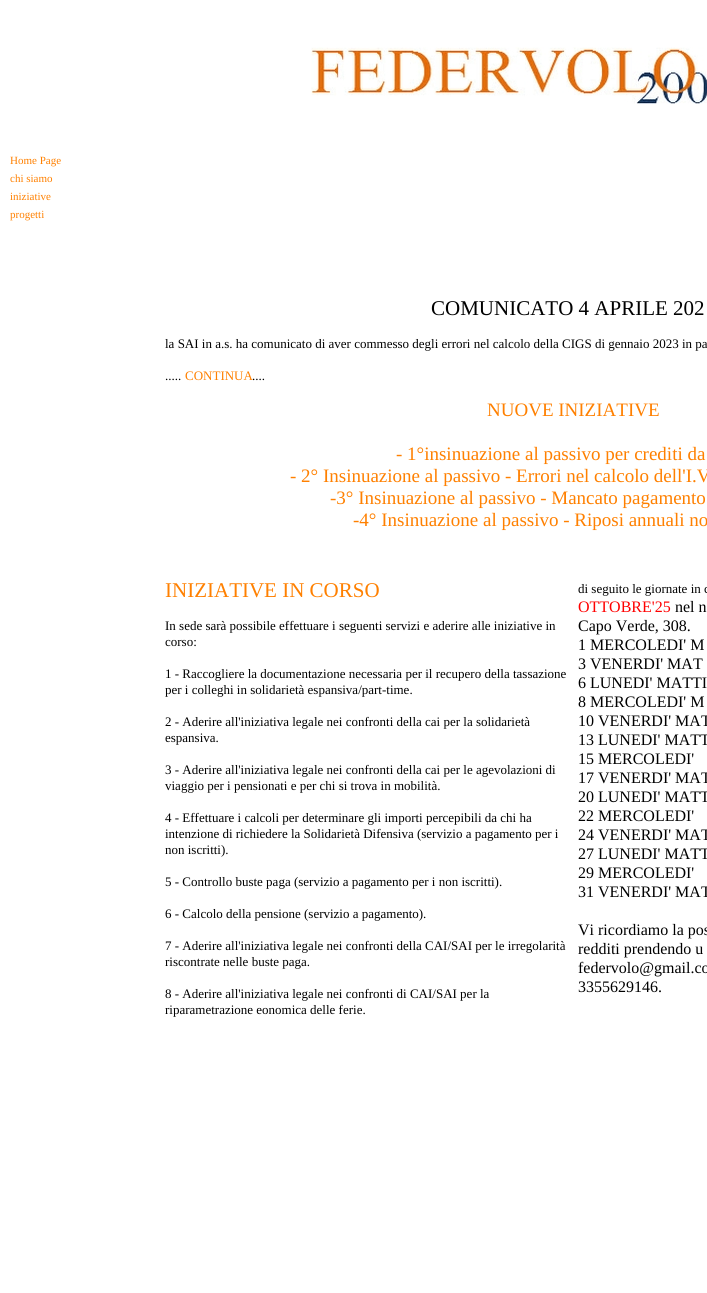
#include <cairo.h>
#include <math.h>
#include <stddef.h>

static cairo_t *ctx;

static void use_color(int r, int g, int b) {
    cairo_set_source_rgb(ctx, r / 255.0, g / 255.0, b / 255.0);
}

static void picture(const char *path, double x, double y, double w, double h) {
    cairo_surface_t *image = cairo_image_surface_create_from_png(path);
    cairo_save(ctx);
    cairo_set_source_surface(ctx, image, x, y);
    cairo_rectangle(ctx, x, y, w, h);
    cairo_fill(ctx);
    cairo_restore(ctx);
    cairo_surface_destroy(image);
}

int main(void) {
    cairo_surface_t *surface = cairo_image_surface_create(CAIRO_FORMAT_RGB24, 707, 1293);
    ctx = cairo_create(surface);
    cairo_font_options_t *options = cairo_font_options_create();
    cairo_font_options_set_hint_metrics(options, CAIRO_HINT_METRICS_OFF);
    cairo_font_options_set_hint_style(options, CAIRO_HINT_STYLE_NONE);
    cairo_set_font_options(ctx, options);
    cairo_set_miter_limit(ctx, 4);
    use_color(255, 255, 255);
    cairo_paint(ctx);
    picture("img1.png", 311, 47, 396, 57);
    cairo_select_font_face(ctx, "Liberation Serif", CAIRO_FONT_SLANT_NORMAL, CAIRO_FONT_WEIGHT_NORMAL);
    cairo_set_font_size(ctx, 11);
    use_color(255, 128, 0);
    cairo_move_to(ctx, 10, 164);
    cairo_show_text(ctx, "Home Page");
    cairo_move_to(ctx, 10, 182);
    cairo_show_text(ctx, "chi siamo");
    cairo_move_to(ctx, 10, 200);
    cairo_show_text(ctx, "iniziative");
    cairo_move_to(ctx, 10, 218);
    cairo_show_text(ctx, "progetti");
    cairo_set_font_size(ctx, 21);
    use_color(0, 0, 0);
    cairo_move_to(ctx, 431, 315);
    cairo_show_text(ctx, "COMUNICATO 4 APRILE 202");
    cairo_set_font_size(ctx, 13);
    cairo_move_to(ctx, 165, 348);
    cairo_show_text(ctx, "la SAI in a.s. ha comunicato di aver commesso degli errori nel calcolo della CIGS di gennaio 2023 in pa");
    cairo_move_to(ctx, 165, 380);
    cairo_show_text(ctx, ".....");
    use_color(255, 128, 0);
    cairo_move_to(ctx, 185, 380);
    cairo_show_text(ctx, "CONTINUA");
    use_color(0, 0, 0);
    cairo_move_to(ctx, 252, 380);
    cairo_show_text(ctx, "....");
    cairo_set_font_size(ctx, 19);
    use_color(255, 128, 0);
    cairo_move_to(ctx, 487, 416);
    cairo_show_text(ctx, "NUOVE INIZIATIVE");
    cairo_move_to(ctx, 396, 460);
    cairo_show_text(ctx, "- 1°insinuazione al passivo per crediti da");
    cairo_move_to(ctx, 290, 482);
    cairo_show_text(ctx, "- 2° Insinuazione al passivo - Errori nel calcolo dell'I.V");
    cairo_move_to(ctx, 330, 504);
    cairo_show_text(ctx, "-3° Insinuazione al passivo - Mancato pagamento");
    cairo_move_to(ctx, 353, 526);
    cairo_show_text(ctx, "-4° Insinuazione al passivo - Riposi annuali no");
    cairo_set_font_size(ctx, 21);
    cairo_move_to(ctx, 165, 597);
    cairo_show_text(ctx, "INIZIATIVE IN CORSO");
    cairo_set_font_size(ctx, 13);
    use_color(0, 0, 0);
    cairo_move_to(ctx, 165, 630);
    cairo_show_text(ctx, "In sede sarà possibile effettuare i seguenti servizi e aderire alle iniziative in");
    cairo_move_to(ctx, 165, 646);
    cairo_show_text(ctx, "corso:");
    cairo_move_to(ctx, 165, 678);
    cairo_show_text(ctx, "1 - Raccogliere la documentazione necessaria per il recupero della tassazione");
    cairo_move_to(ctx, 165, 694);
    cairo_show_text(ctx, "per i colleghi in solidarietà espansiva/part-time.");
    cairo_move_to(ctx, 165, 726);
    cairo_show_text(ctx, "2 - Aderire all'iniziativa legale nei confronti della cai per la solidarietà");
    cairo_move_to(ctx, 165, 742);
    cairo_show_text(ctx, "espansiva.");
    cairo_move_to(ctx, 165, 774);
    cairo_show_text(ctx, "3 - Aderire all'iniziativa legale nei confronti della cai per le agevolazioni di");
    cairo_move_to(ctx, 165, 790);
    cairo_show_text(ctx, "viaggio per i pensionati e per chi si trova in mobilità.");
    cairo_move_to(ctx, 165, 822);
    cairo_show_text(ctx, "4 - Effettuare i calcoli per determinare gli importi percepibili da chi ha");
    cairo_move_to(ctx, 165, 838);
    cairo_show_text(ctx, "intenzione di richiedere la Solidarietà Difensiva (servizio a pagamento per i");
    cairo_move_to(ctx, 165, 854);
    cairo_show_text(ctx, "non iscritti).");
    cairo_move_to(ctx, 165, 886);
    cairo_show_text(ctx, "5 - Controllo buste paga (servizio a pagamento per i non iscritti).");
    cairo_move_to(ctx, 165, 918);
    cairo_show_text(ctx, "6 - Calcolo della pensione (servizio a pagamento).");
    cairo_move_to(ctx, 165, 950);
    cairo_show_text(ctx, "7 - Aderire all'iniziativa legale nei confronti della CAI/SAI per le irregolarità");
    cairo_move_to(ctx, 165, 966);
    cairo_show_text(ctx, "riscontrate nelle buste paga.");
    cairo_move_to(ctx, 165, 998);
    cairo_show_text(ctx, "8 - Aderire all'iniziativa legale nei confronti di CAI/SAI per la");
    cairo_move_to(ctx, 165, 1014);
    cairo_show_text(ctx, "riparametrazione eonomica delle ferie.");
    cairo_move_to(ctx, 578, 593);
    cairo_show_text(ctx, "di seguito le giornate in c");
    cairo_set_font_size(ctx, 16);
    use_color(255, 0, 0);
    cairo_move_to(ctx, 578, 612);
    cairo_show_text(ctx, "OTTOBRE'25");
    use_color(0, 0, 0);
    cairo_move_to(ctx, 675, 612);
    cairo_show_text(ctx, "nel n");
    cairo_move_to(ctx, 578, 631);
    cairo_show_text(ctx, "Capo Verde, 308.");
    cairo_move_to(ctx, 578, 650);
    cairo_show_text(ctx, "1 MERCOLEDI' M");
    cairo_move_to(ctx, 578, 669);
    cairo_show_text(ctx, "3 VENERDI' MAT");
    cairo_move_to(ctx, 578, 688);
    cairo_show_text(ctx, "6 LUNEDI' MATTI");
    cairo_move_to(ctx, 578, 707);
    cairo_show_text(ctx, "8 MERCOLEDI' M");
    cairo_move_to(ctx, 578, 726);
    cairo_show_text(ctx, "10 VENERDI' MAT");
    cairo_move_to(ctx, 578, 745);
    cairo_show_text(ctx, "13 LUNEDI' MATT");
    cairo_move_to(ctx, 578, 764);
    cairo_show_text(ctx, "15 MERCOLEDI'");
    cairo_move_to(ctx, 578, 783);
    cairo_show_text(ctx, "17 VENERDI' MAT");
    cairo_move_to(ctx, 578, 802);
    cairo_show_text(ctx, "20 LUNEDI' MATT");
    cairo_move_to(ctx, 578, 821);
    cairo_show_text(ctx, "22 MERCOLEDI'");
    cairo_move_to(ctx, 578, 840);
    cairo_show_text(ctx, "24 VENERDI' MAT");
    cairo_move_to(ctx, 578, 859);
    cairo_show_text(ctx, "27 LUNEDI' MATT");
    cairo_move_to(ctx, 578, 878);
    cairo_show_text(ctx, "29 MERCOLEDI'");
    cairo_move_to(ctx, 578, 897);
    cairo_show_text(ctx, "31 VENERDI' MAT");
    cairo_move_to(ctx, 578, 935);
    cairo_show_text(ctx, "Vi ricordiamo la pos");
    cairo_move_to(ctx, 578, 954);
    cairo_show_text(ctx, "redditi prendendo u");
    cairo_move_to(ctx, 578, 973);
    cairo_show_text(ctx, "federvolo@gmail.co");
    cairo_move_to(ctx, 578, 992);
    cairo_show_text(ctx, "3355629146.");
    cairo_surface_write_to_png(surface, "result.png");
    cairo_font_options_destroy(options);
    cairo_destroy(ctx);
    cairo_surface_destroy(surface);
    return 0;
}
